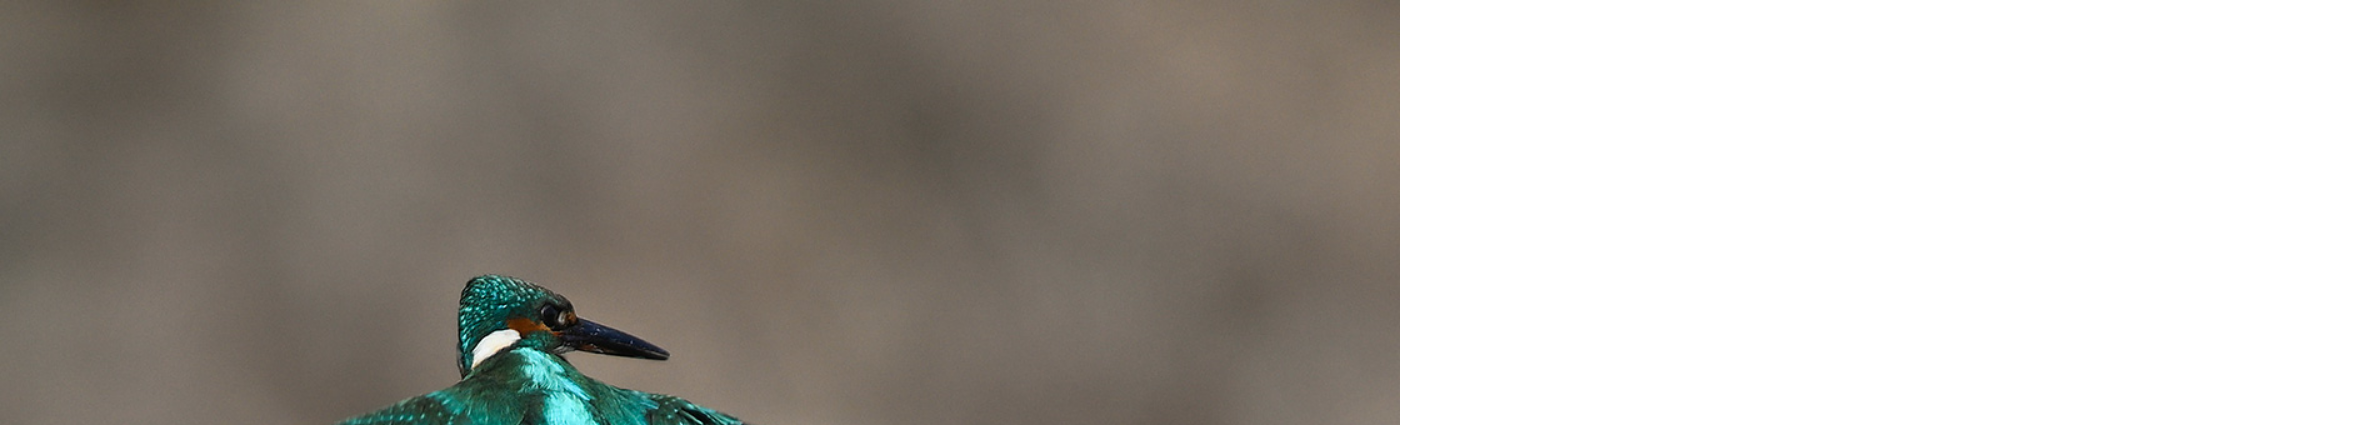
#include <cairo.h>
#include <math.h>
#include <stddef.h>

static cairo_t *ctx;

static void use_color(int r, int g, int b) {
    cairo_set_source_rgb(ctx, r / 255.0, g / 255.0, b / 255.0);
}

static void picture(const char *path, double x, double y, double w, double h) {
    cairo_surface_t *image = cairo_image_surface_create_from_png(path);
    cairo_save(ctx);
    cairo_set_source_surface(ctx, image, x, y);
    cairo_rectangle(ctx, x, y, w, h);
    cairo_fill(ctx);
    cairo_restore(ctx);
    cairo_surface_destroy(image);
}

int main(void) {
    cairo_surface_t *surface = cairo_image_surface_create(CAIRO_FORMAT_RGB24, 2364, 425);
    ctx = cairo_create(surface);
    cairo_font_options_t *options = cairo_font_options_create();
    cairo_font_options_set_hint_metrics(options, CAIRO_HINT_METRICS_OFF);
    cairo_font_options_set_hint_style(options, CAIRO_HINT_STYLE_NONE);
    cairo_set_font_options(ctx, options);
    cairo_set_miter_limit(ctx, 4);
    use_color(255, 255, 255);
    cairo_paint(ctx);
    picture("img1.png", 0, 0, 1400, 425);
    cairo_surface_write_to_png(surface, "result.png");
    cairo_font_options_destroy(options);
    cairo_destroy(ctx);
    cairo_surface_destroy(surface);
    return 0;
}
